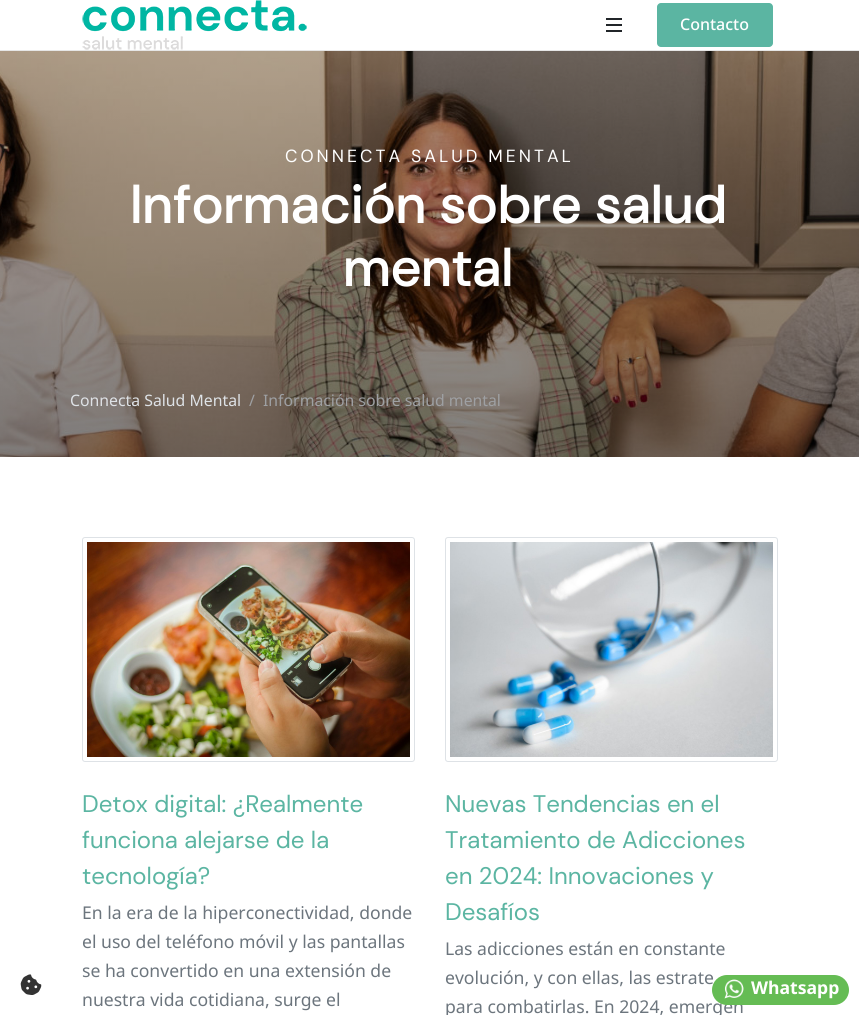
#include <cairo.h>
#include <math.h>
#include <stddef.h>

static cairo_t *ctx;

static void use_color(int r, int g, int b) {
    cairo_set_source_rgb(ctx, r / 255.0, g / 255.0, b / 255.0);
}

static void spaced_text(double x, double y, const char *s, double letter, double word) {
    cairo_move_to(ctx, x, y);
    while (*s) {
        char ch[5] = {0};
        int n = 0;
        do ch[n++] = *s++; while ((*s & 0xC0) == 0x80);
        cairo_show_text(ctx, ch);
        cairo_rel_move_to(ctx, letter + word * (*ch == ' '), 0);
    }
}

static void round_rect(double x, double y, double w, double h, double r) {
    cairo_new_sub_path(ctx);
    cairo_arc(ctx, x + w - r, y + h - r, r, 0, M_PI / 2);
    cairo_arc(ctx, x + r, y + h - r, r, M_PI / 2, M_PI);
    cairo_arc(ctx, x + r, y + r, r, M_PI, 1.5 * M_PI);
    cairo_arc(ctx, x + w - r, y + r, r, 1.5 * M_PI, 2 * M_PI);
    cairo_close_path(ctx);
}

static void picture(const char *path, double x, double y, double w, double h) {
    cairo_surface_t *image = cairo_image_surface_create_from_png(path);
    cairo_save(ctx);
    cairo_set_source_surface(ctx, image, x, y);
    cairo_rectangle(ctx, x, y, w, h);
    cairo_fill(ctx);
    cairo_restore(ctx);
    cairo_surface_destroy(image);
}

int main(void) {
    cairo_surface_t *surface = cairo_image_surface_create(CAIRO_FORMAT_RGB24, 859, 1015);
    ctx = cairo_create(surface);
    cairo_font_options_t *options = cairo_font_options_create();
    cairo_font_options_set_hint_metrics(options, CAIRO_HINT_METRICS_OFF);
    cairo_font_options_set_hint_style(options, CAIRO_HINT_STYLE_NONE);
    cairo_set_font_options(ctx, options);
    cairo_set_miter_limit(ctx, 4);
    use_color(255, 255, 255);
    cairo_paint(ctx);
    picture("img1.png", 20, 974, 22, 21);
    use_color(230, 230, 230);
    cairo_rectangle(ctx, 0, 50, 859, 1);
    cairo_fill(ctx);
    picture("img2.png", 82, 0, 225, 50);
    use_color(33, 37, 41);
    cairo_rectangle(ctx, 606, 24, 16, 2);
    cairo_fill(ctx);
    cairo_rectangle(ctx, 606, 18, 16, 2);
    cairo_fill(ctx);
    cairo_rectangle(ctx, 606, 30, 16, 2);
    cairo_fill(ctx);
    use_color(91, 181, 162);
    round_rect(657, 3, 116, 44, 4);
    cairo_fill(ctx);
    cairo_select_font_face(ctx, "Noto Sans Medium", CAIRO_FONT_SLANT_NORMAL, CAIRO_FONT_WEIGHT_NORMAL);
    cairo_set_font_size(ctx, 16);
    use_color(255, 255, 255);
    cairo_move_to(ctx, 680, 30);
    cairo_show_text(ctx, "Contacto");
    picture("img3.png", 0, 51, 859, 406);
    cairo_select_font_face(ctx, "DM Sans", CAIRO_FONT_SLANT_NORMAL, CAIRO_FONT_WEIGHT_NORMAL);
    cairo_set_font_size(ctx, 17.6);
    spaced_text(285, 162, "CONNECTA SALUD MENTAL", 3, 0);
    cairo_select_font_face(ctx, "DM Sans", CAIRO_FONT_SLANT_NORMAL, CAIRO_FONT_WEIGHT_BOLD);
    cairo_set_font_size(ctx, 52.75);
    spaced_text(131, 223, "Información sobre salud", 3, 0);
    spaced_text(344, 286, "mental", 3, 0);
    cairo_select_font_face(ctx, "Noto Sans", CAIRO_FONT_SLANT_NORMAL, CAIRO_FONT_WEIGHT_NORMAL);
    cairo_set_font_size(ctx, 15.8);
    use_color(222, 226, 230);
    cairo_move_to(ctx, 70, 406);
    cairo_show_text(ctx, "Connecta Salud Mental");
    use_color(158, 160, 163);
    cairo_move_to(ctx, 249, 406);
    cairo_show_text(ctx, "/");
    cairo_move_to(ctx, 263, 406);
    cairo_show_text(ctx, "Información sobre salud mental");
    round_rect(82.5, 537.5, 332, 224, 2.5);
    use_color(222, 226, 230);
    cairo_set_line_width(ctx, 1);
    cairo_stroke(ctx);
    picture("img4.png", 87, 542, 323, 215);
    cairo_select_font_face(ctx, "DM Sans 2", CAIRO_FONT_SLANT_NORMAL, CAIRO_FONT_WEIGHT_NORMAL);
    cairo_set_font_size(ctx, 24);
    use_color(91, 181, 162);
    cairo_move_to(ctx, 82, 812);
    cairo_show_text(ctx, "Detox digital: ¿Realmente");
    cairo_move_to(ctx, 82, 848);
    cairo_show_text(ctx, "funciona alejarse de la");
    cairo_move_to(ctx, 82, 884);
    cairo_show_text(ctx, "tecnología?");
    cairo_select_font_face(ctx, "Noto Sans", CAIRO_FONT_SLANT_NORMAL, CAIRO_FONT_WEIGHT_NORMAL);
    cairo_set_font_size(ctx, 17.6);
    use_color(108, 117, 125);
    cairo_move_to(ctx, 82, 919);
    cairo_show_text(ctx, "En la era de la hiperconectividad, donde");
    cairo_move_to(ctx, 82, 948);
    cairo_show_text(ctx, "el uso del teléfono móvil y las pantallas");
    cairo_move_to(ctx, 82, 977);
    cairo_show_text(ctx, "se ha convertido en una extensión de");
    cairo_move_to(ctx, 82, 1006);
    cairo_show_text(ctx, "nuestra vida cotidiana, surge el");
    round_rect(445.5, 537.5, 332, 224, 2.5);
    use_color(222, 226, 230);
    cairo_stroke(ctx);
    picture("img5.png", 450, 542, 323, 215);
    cairo_select_font_face(ctx, "DM Sans 2", CAIRO_FONT_SLANT_NORMAL, CAIRO_FONT_WEIGHT_NORMAL);
    cairo_set_font_size(ctx, 24);
    use_color(91, 181, 162);
    cairo_move_to(ctx, 445, 812);
    cairo_show_text(ctx, "Nuevas Tendencias en el");
    cairo_move_to(ctx, 445, 848);
    cairo_show_text(ctx, "Tratamiento de Adicciones");
    cairo_move_to(ctx, 445, 884);
    cairo_show_text(ctx, "en 2024: Innovaciones y");
    cairo_move_to(ctx, 445, 920);
    cairo_show_text(ctx, "Desafíos");
    cairo_select_font_face(ctx, "Noto Sans", CAIRO_FONT_SLANT_NORMAL, CAIRO_FONT_WEIGHT_NORMAL);
    cairo_set_font_size(ctx, 17.6);
    use_color(108, 117, 125);
    cairo_move_to(ctx, 445, 955);
    cairo_show_text(ctx, "Las adicciones están en constante");
    cairo_move_to(ctx, 445, 984);
    cairo_show_text(ctx, "evolución, y con ellas, las estrate");
    cairo_move_to(ctx, 445, 1013);
    cairo_show_text(ctx, "para combatirlas. En 2024, emergen");
    use_color(101, 188, 84);
    round_rect(712, 975, 137, 30, 15);
    cairo_fill(ctx);
    picture("img6.png", 724, 979, 20, 20);
    cairo_select_font_face(ctx, "Noto Sans", CAIRO_FONT_SLANT_NORMAL, CAIRO_FONT_WEIGHT_BOLD);
    use_color(255, 255, 255);
    cairo_move_to(ctx, 751, 994);
    cairo_show_text(ctx, "Whatsapp");
    cairo_surface_write_to_png(surface, "result.png");
    cairo_font_options_destroy(options);
    cairo_destroy(ctx);
    cairo_surface_destroy(surface);
    return 0;
}
